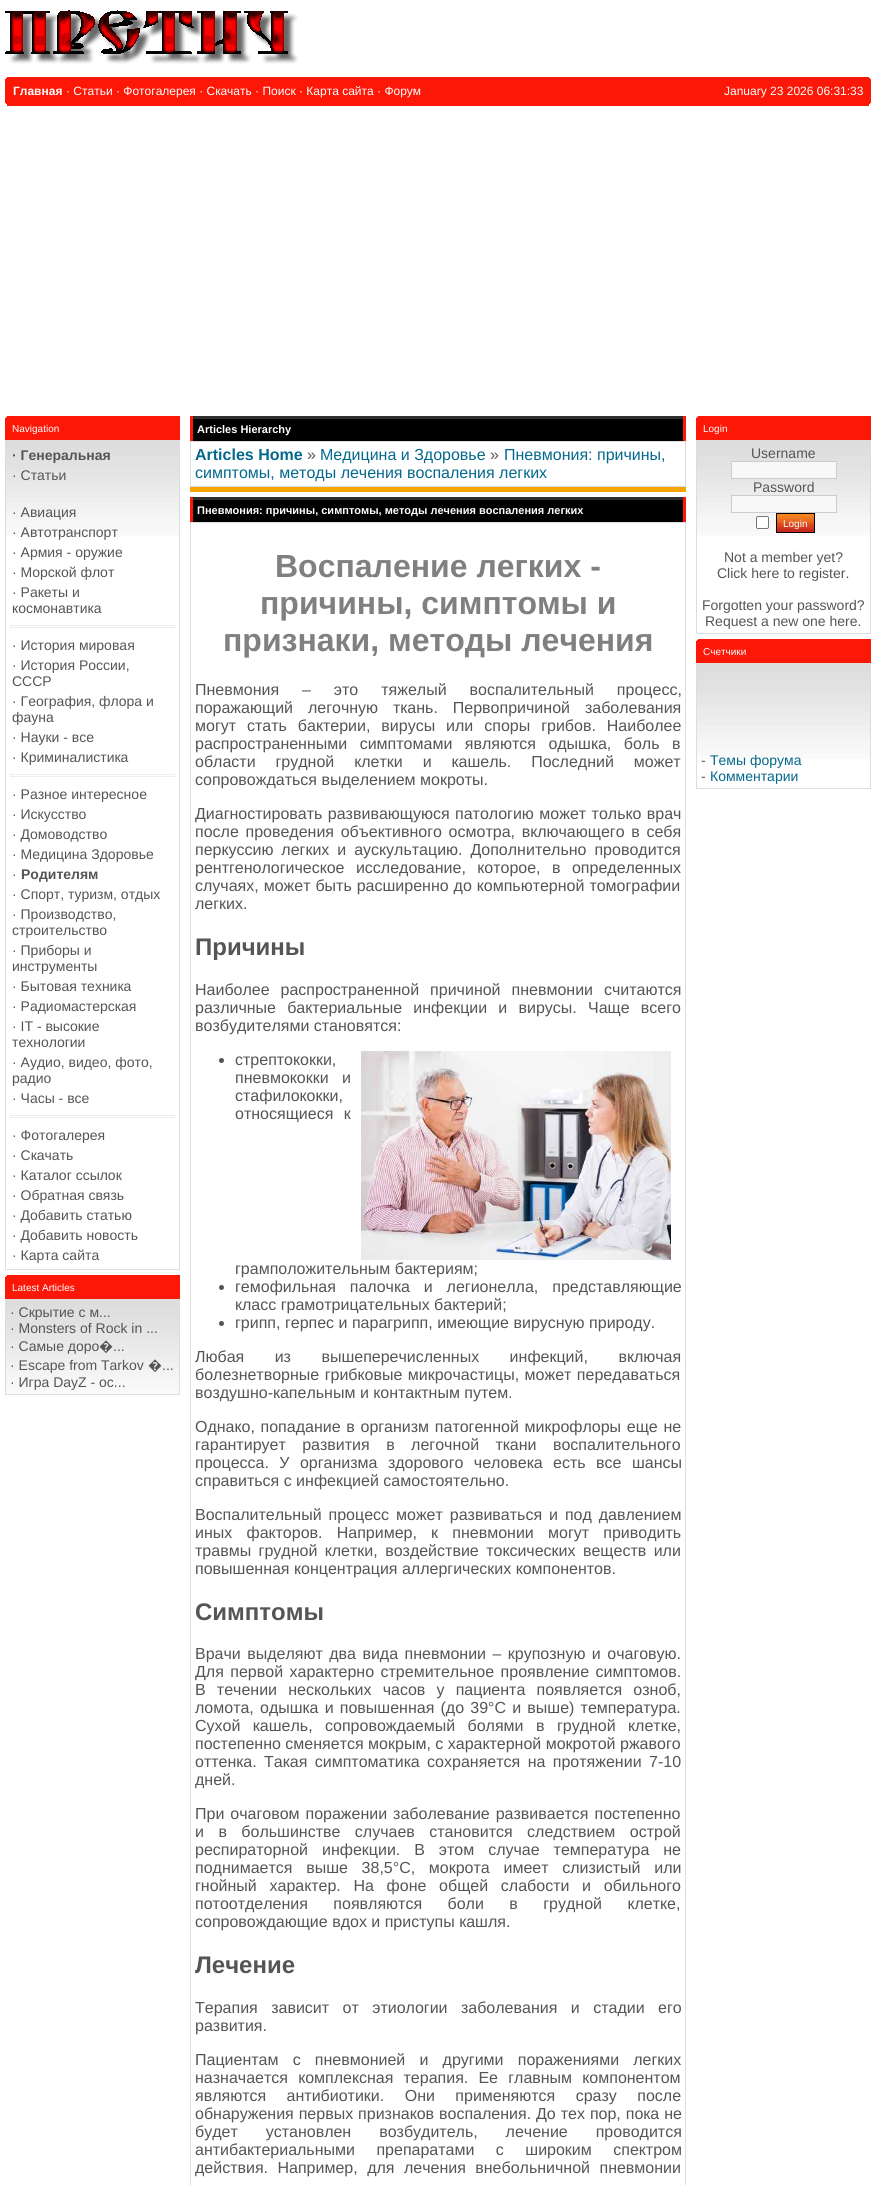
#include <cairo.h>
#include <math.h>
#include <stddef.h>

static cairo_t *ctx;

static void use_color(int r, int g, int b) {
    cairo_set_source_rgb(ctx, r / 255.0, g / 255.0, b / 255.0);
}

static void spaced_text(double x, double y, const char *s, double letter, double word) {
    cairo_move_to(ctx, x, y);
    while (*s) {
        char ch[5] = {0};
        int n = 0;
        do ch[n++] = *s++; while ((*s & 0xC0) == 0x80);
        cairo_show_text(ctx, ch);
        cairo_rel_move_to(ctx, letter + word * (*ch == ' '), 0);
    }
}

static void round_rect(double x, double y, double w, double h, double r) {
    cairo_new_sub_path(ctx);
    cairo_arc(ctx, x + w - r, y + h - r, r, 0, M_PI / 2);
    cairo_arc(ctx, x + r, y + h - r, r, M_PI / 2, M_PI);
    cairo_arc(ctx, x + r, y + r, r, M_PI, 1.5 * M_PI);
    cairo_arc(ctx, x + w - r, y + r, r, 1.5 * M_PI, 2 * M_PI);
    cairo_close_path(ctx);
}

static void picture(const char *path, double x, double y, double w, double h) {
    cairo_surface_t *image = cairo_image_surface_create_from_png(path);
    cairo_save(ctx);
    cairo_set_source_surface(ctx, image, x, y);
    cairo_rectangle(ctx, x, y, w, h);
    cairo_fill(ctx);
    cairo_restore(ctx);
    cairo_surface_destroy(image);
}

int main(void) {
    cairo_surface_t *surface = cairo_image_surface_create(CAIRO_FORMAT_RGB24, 876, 2185);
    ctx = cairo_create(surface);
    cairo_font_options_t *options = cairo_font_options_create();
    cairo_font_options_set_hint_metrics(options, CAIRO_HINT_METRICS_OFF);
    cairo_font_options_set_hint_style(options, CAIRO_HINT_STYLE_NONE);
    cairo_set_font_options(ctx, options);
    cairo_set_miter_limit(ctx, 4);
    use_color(255, 255, 255);
    cairo_paint(ctx);
    picture("img1.png", 5, 10, 293, 54);
    picture("img2.png", 5, 77, 3, 29);
    use_color(253, 23, 6);
    cairo_rectangle(ctx, 8, 77, 860, 29);
    cairo_fill(ctx);
    cairo_select_font_face(ctx, "Liberation Sans", CAIRO_FONT_SLANT_NORMAL, CAIRO_FONT_WEIGHT_BOLD);
    cairo_set_font_size(ctx, 12);
    use_color(255, 255, 255);
    cairo_move_to(ctx, 13, 95);
    cairo_show_text(ctx, "Главная");
    cairo_select_font_face(ctx, "Liberation Sans", CAIRO_FONT_SLANT_NORMAL, CAIRO_FONT_WEIGHT_NORMAL);
    cairo_move_to(ctx, 66, 95);
    cairo_show_text(ctx, "· Статьи · Фотогалерея · Скачать · Поиск · Карта сайта · Форум");
    cairo_move_to(ctx, 724, 95);
    cairo_show_text(ctx, "January 23 2026 06:31:33");
    picture("img3.png", 868, 77, 3, 29);
    picture("img4.png", 5, 416, 3, 24);
    use_color(253, 23, 6);
    cairo_rectangle(ctx, 8, 416, 172, 24);
    cairo_fill(ctx);
    cairo_set_font_size(ctx, 10);
    use_color(255, 255, 255);
    cairo_move_to(ctx, 12, 432);
    cairo_show_text(ctx, "Navigation");
    picture("img5.png", 6, 441, 173, 95);
    cairo_rectangle(ctx, 5.5, 440.5, 174, 829);
    use_color(221, 221, 221);
    cairo_set_line_width(ctx, 1);
    cairo_stroke(ctx);
    cairo_select_font_face(ctx, "Liberation Sans", CAIRO_FONT_SLANT_NORMAL, CAIRO_FONT_WEIGHT_BOLD);
    cairo_set_font_size(ctx, 14);
    use_color(85, 85, 85);
    cairo_move_to(ctx, 12, 460);
    cairo_show_text(ctx, "· Генеральная");
    cairo_select_font_face(ctx, "Liberation Sans", CAIRO_FONT_SLANT_NORMAL, CAIRO_FONT_WEIGHT_NORMAL);
    cairo_move_to(ctx, 12, 480);
    cairo_show_text(ctx, "· Статьи");
    cairo_rectangle(ctx, 10.5, 492.5, 164, 2);
    use_color(238, 238, 238);
    cairo_stroke(ctx);
    use_color(85, 85, 85);
    cairo_move_to(ctx, 12, 517);
    cairo_show_text(ctx, "· Авиация");
    cairo_move_to(ctx, 12, 537);
    cairo_show_text(ctx, "· Автотранспорт");
    cairo_move_to(ctx, 12, 557);
    cairo_show_text(ctx, "· Армия - оружие");
    cairo_move_to(ctx, 12, 577);
    cairo_show_text(ctx, "· Морской флот");
    cairo_move_to(ctx, 12, 597);
    cairo_show_text(ctx, "· Ракеты и");
    cairo_move_to(ctx, 12, 613);
    cairo_show_text(ctx, "космонавтика");
    cairo_rectangle(ctx, 10.5, 625.5, 164, 2);
    use_color(238, 238, 238);
    cairo_stroke(ctx);
    use_color(85, 85, 85);
    cairo_move_to(ctx, 12, 650);
    cairo_show_text(ctx, "· История мировая");
    cairo_move_to(ctx, 12, 670);
    cairo_show_text(ctx, "· История России,");
    cairo_move_to(ctx, 12, 686);
    cairo_show_text(ctx, "СССР");
    cairo_move_to(ctx, 12, 706);
    cairo_show_text(ctx, "· География, флора и");
    cairo_move_to(ctx, 12, 722);
    cairo_show_text(ctx, "фауна");
    cairo_move_to(ctx, 12, 742);
    cairo_show_text(ctx, "· Науки - все");
    cairo_move_to(ctx, 12, 762);
    cairo_show_text(ctx, "· Криминалистика");
    cairo_rectangle(ctx, 10.5, 774.5, 164, 2);
    use_color(238, 238, 238);
    cairo_stroke(ctx);
    use_color(85, 85, 85);
    cairo_move_to(ctx, 12, 799);
    cairo_show_text(ctx, "· Разное интересное");
    cairo_move_to(ctx, 12, 819);
    cairo_show_text(ctx, "· Искусство");
    cairo_move_to(ctx, 12, 839);
    cairo_show_text(ctx, "· Домоводство");
    cairo_move_to(ctx, 12, 859);
    cairo_show_text(ctx, "· Медицина Здоровье");
    cairo_move_to(ctx, 12, 879);
    cairo_show_text(ctx, "·");
    cairo_select_font_face(ctx, "Liberation Sans", CAIRO_FONT_SLANT_NORMAL, CAIRO_FONT_WEIGHT_BOLD);
    cairo_move_to(ctx, 21, 879);
    cairo_show_text(ctx, "Родителям");
    cairo_select_font_face(ctx, "Liberation Sans", CAIRO_FONT_SLANT_NORMAL, CAIRO_FONT_WEIGHT_NORMAL);
    cairo_move_to(ctx, 12, 899);
    cairo_show_text(ctx, "· Спорт, туризм, отдых");
    cairo_move_to(ctx, 12, 919);
    cairo_show_text(ctx, "· Производство,");
    cairo_move_to(ctx, 12, 935);
    cairo_show_text(ctx, "строительство");
    cairo_move_to(ctx, 12, 955);
    cairo_show_text(ctx, "· Приборы и");
    cairo_move_to(ctx, 12, 971);
    cairo_show_text(ctx, "инструменты");
    cairo_move_to(ctx, 12, 991);
    cairo_show_text(ctx, "· Бытовая техника");
    cairo_move_to(ctx, 12, 1011);
    cairo_show_text(ctx, "· Радиомастерская");
    cairo_move_to(ctx, 12, 1031);
    cairo_show_text(ctx, "· IT - высокие");
    cairo_move_to(ctx, 12, 1047);
    cairo_show_text(ctx, "технологии");
    cairo_move_to(ctx, 12, 1067);
    cairo_show_text(ctx, "· Аудио, видео, фото,");
    cairo_move_to(ctx, 12, 1083);
    cairo_show_text(ctx, "радио");
    cairo_move_to(ctx, 12, 1103);
    cairo_show_text(ctx, "· Часы - все");
    cairo_rectangle(ctx, 10.5, 1115.5, 164, 2);
    use_color(238, 238, 238);
    cairo_stroke(ctx);
    use_color(85, 85, 85);
    cairo_move_to(ctx, 12, 1140);
    cairo_show_text(ctx, "· Фотогалерея");
    cairo_move_to(ctx, 12, 1160);
    cairo_show_text(ctx, "· Скачать");
    cairo_move_to(ctx, 12, 1180);
    cairo_show_text(ctx, "· Каталог ссылок");
    cairo_move_to(ctx, 12, 1200);
    cairo_show_text(ctx, "· Обратная связь");
    cairo_move_to(ctx, 12, 1220);
    cairo_show_text(ctx, "· Добавить статью");
    cairo_move_to(ctx, 12, 1240);
    cairo_show_text(ctx, "· Добавить новость");
    cairo_move_to(ctx, 12, 1260);
    cairo_show_text(ctx, "· Карта сайта");
    picture("img4.png", 5, 1275, 3, 24);
    use_color(253, 23, 6);
    cairo_rectangle(ctx, 8, 1275, 172, 24);
    cairo_fill(ctx);
    cairo_set_font_size(ctx, 10);
    use_color(255, 255, 255);
    cairo_move_to(ctx, 12, 1291);
    cairo_show_text(ctx, "Latest Articles");
    picture("img6.png", 6, 1300, 173, 94);
    cairo_rectangle(ctx, 5.5, 1299.5, 174, 95);
    use_color(221, 221, 221);
    cairo_stroke(ctx);
    cairo_set_font_size(ctx, 14);
    use_color(85, 85, 85);
    cairo_move_to(ctx, 10, 1317);
    cairo_show_text(ctx, "· Скрытие с м...");
    cairo_move_to(ctx, 10, 1333);
    cairo_show_text(ctx, "· Monsters of Rock in ...");
    cairo_move_to(ctx, 10, 1351);
    cairo_show_text(ctx, "· Самые доро");
    cairo_select_font_face(ctx, "Noto Sans", CAIRO_FONT_SLANT_NORMAL, CAIRO_FONT_WEIGHT_NORMAL);
    cairo_move_to(ctx, 99, 1351);
    cairo_show_text(ctx, "�");
    cairo_select_font_face(ctx, "Liberation Sans", CAIRO_FONT_SLANT_NORMAL, CAIRO_FONT_WEIGHT_NORMAL);
    cairo_move_to(ctx, 113, 1351);
    cairo_show_text(ctx, "...");
    cairo_move_to(ctx, 10, 1370);
    cairo_show_text(ctx, "· Escape from Tarkov");
    cairo_select_font_face(ctx, "Noto Sans", CAIRO_FONT_SLANT_NORMAL, CAIRO_FONT_WEIGHT_NORMAL);
    cairo_move_to(ctx, 148, 1370);
    cairo_show_text(ctx, "�");
    cairo_select_font_face(ctx, "Liberation Sans", CAIRO_FONT_SLANT_NORMAL, CAIRO_FONT_WEIGHT_NORMAL);
    cairo_move_to(ctx, 162, 1370);
    cairo_show_text(ctx, "...");
    cairo_move_to(ctx, 10, 1387);
    cairo_show_text(ctx, "· Игра DayZ - ос...");
    use_color(253, 23, 6);
    cairo_rectangle(ctx, 190, 416, 3, 25);
    cairo_fill(ctx);
    picture("img7.png", 193, 416, 490, 25);
    cairo_select_font_face(ctx, "Liberation Sans", CAIRO_FONT_SLANT_NORMAL, CAIRO_FONT_WEIGHT_BOLD);
    cairo_set_font_size(ctx, 11);
    use_color(255, 255, 255);
    cairo_move_to(ctx, 197, 433);
    cairo_show_text(ctx, "Articles Hierarchy");
    use_color(253, 23, 6);
    cairo_rectangle(ctx, 683, 416, 3, 25);
    cairo_fill(ctx);
    cairo_rectangle(ctx, 190.5, 441.5, 495, 45);
    use_color(221, 221, 221);
    cairo_stroke(ctx);
    cairo_set_font_size(ctx, 16);
    use_color(4, 104, 141);
    cairo_move_to(ctx, 195, 460);
    cairo_show_text(ctx, "Articles Home");
    cairo_select_font_face(ctx, "Liberation Sans", CAIRO_FONT_SLANT_NORMAL, CAIRO_FONT_WEIGHT_NORMAL);
    use_color(85, 85, 85);
    cairo_move_to(ctx, 307, 460);
    cairo_show_text(ctx, "»");
    use_color(4, 104, 141);
    cairo_move_to(ctx, 320, 460);
    cairo_show_text(ctx, "Медицина и Здоровье");
    use_color(85, 85, 85);
    cairo_move_to(ctx, 490, 460);
    cairo_show_text(ctx, "»");
    use_color(4, 104, 141);
    cairo_move_to(ctx, 504, 460);
    cairo_show_text(ctx, "Пневмония: причины,");
    cairo_move_to(ctx, 195, 478);
    cairo_show_text(ctx, "симптомы, методы лечения воспаления легких");
    use_color(246, 165, 4);
    cairo_rectangle(ctx, 190, 487, 496, 5);
    cairo_fill(ctx);
    use_color(253, 23, 6);
    cairo_rectangle(ctx, 190, 497, 3, 25);
    cairo_fill(ctx);
    picture("img7.png", 193, 497, 490, 25);
    cairo_select_font_face(ctx, "Liberation Sans", CAIRO_FONT_SLANT_NORMAL, CAIRO_FONT_WEIGHT_BOLD);
    cairo_set_font_size(ctx, 11);
    use_color(255, 255, 255);
    cairo_move_to(ctx, 197, 514);
    cairo_show_text(ctx, "Пневмония: причины, симптомы, методы лечения воспаления легких");
    use_color(253, 23, 6);
    cairo_rectangle(ctx, 683, 497, 3, 25);
    cairo_fill(ctx);
    cairo_rectangle(ctx, 190.5, 522.5, 495, 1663);
    use_color(221, 221, 221);
    cairo_stroke(ctx);
    cairo_set_font_size(ctx, 32);
    use_color(128, 128, 128);
    cairo_move_to(ctx, 275, 577);
    cairo_show_text(ctx, "Воспаление легких -");
    cairo_move_to(ctx, 260, 614);
    cairo_show_text(ctx, "причины, симптомы и");
    cairo_move_to(ctx, 223, 651);
    cairo_show_text(ctx, "признаки, методы лечения");
    cairo_select_font_face(ctx, "Liberation Sans", CAIRO_FONT_SLANT_NORMAL, CAIRO_FONT_WEIGHT_NORMAL);
    cairo_set_font_size(ctx, 16);
    use_color(85, 85, 85);
    spaced_text(195, 695, "Пневмония – это тяжелый воспалительный процесс,", 0, 18.5);
    spaced_text(195, 713, "поражающий легочную ткань. Первопричиной заболевания", 0, 10.5);
    spaced_text(195, 731, "могут стать бактерии, вирусы или споры грибов. Наиболее", 0, 6.5);
    spaced_text(195, 749, "распространенными симптомами являются одышка, боль в", 0, 8);
    spaced_text(195, 767, "области грудной клетки и кашель. Последний может", 0, 15.5);
    cairo_move_to(ctx, 195, 785);
    cairo_show_text(ctx, "сопровождаться выделением мокроты.");
    spaced_text(195, 819, "Диагностировать развивающуюся патологию может только врач", 0, 1);
    spaced_text(195, 837, "после проведения объективного осмотра, включающего в себя", 0, 2.25);
    spaced_text(195, 855, "перкуссию легких и аускультацию. Дополнительно проводится", 0, 3.5);
    spaced_text(195, 873, "рентгенологическое исследование, которое, в определенных", 0, 7);
    spaced_text(195, 891, "случаях, может быть расширенно до компьютерной томографии", 0, 0.5);
    cairo_move_to(ctx, 195, 909);
    cairo_show_text(ctx, "легких.");
    cairo_select_font_face(ctx, "Liberation Sans", CAIRO_FONT_SLANT_NORMAL, CAIRO_FONT_WEIGHT_BOLD);
    cairo_set_font_size(ctx, 24);
    cairo_move_to(ctx, 195, 955);
    cairo_show_text(ctx, "Причины");
    cairo_select_font_face(ctx, "Liberation Sans", CAIRO_FONT_SLANT_NORMAL, CAIRO_FONT_WEIGHT_NORMAL);
    cairo_set_font_size(ctx, 16);
    spaced_text(195, 995, "Наиболее распространенной причиной пневмонии считаются", 0, 6.5);
    spaced_text(195, 1013, "различные бактериальные инфекции и вирусы. Чаще всего", 0, 6.75);
    cairo_move_to(ctx, 195, 1031);
    cairo_show_text(ctx, "возбудителями становятся:");
    cairo_new_path(ctx);
    cairo_arc(ctx, 221.5, 1060.5, 2.5, 0, 2 * M_PI);
    cairo_fill(ctx);
    cairo_move_to(ctx, 235, 1065);
    cairo_show_text(ctx, "стрептококки,");
    picture("img8.png", 361, 1051, 310, 209);
    spaced_text(235, 1083, "пневмококки и", 0, 9);
    cairo_move_to(ctx, 235, 1101);
    cairo_show_text(ctx, "стафилококки,");
    spaced_text(235, 1119, "относящиеся к", 0, 6);
    cairo_move_to(ctx, 235, 1274);
    cairo_show_text(ctx, "грамположительным бактериям;");
    cairo_new_path(ctx);
    cairo_arc(ctx, 221.5, 1287.5, 2.5, 0, 2 * M_PI);
    cairo_fill(ctx);
    spaced_text(235, 1292, "гемофильная палочка и легионелла, представляющие", 0, 9.5);
    cairo_move_to(ctx, 235, 1310);
    cairo_show_text(ctx, "класс грамотрицательных бактерий;");
    cairo_new_path(ctx);
    cairo_arc(ctx, 221.5, 1323.5, 2.5, 0, 2 * M_PI);
    cairo_fill(ctx);
    cairo_move_to(ctx, 235, 1328);
    cairo_show_text(ctx, "грипп, герпес и парагрипп, имеющие вирусную природу.");
    spaced_text(195, 1362, "Любая из вышеперечисленных инфекций, включая", 0, 26);
    spaced_text(195, 1380, "болезнетворные грибковые микрочастицы, может передаваться", 0, 1);
    cairo_move_to(ctx, 195, 1398);
    cairo_show_text(ctx, "воздушно-капельным и контактным путем.");
    spaced_text(195, 1432, "Однако, попадание в организм патогенной микрофлоры еще не", 0, 1.25);
    spaced_text(195, 1450, "гарантирует развития в легочной ткани воспалительного", 0, 12);
    spaced_text(195, 1468, "процесса. У организма здорового человека есть все шансы", 0, 6);
    cairo_move_to(ctx, 195, 1486);
    cairo_show_text(ctx, "справиться с инфекцией самостоятельно.");
    spaced_text(195, 1520, "Воспалительный процесс может развиваться и под давлением", 0, 2.5);
    spaced_text(195, 1538, "иных факторов. Например, к пневмонии могут приводить", 0, 9.75);
    spaced_text(195, 1556, "травмы грудной клетки, воздействие токсических веществ или", 0, 3);
    cairo_move_to(ctx, 195, 1574);
    cairo_show_text(ctx, "повышенная концентрация аллергических компонентов.");
    cairo_select_font_face(ctx, "Liberation Sans", CAIRO_FONT_SLANT_NORMAL, CAIRO_FONT_WEIGHT_BOLD);
    cairo_set_font_size(ctx, 24);
    cairo_move_to(ctx, 195, 1620);
    cairo_show_text(ctx, "Симптомы");
    cairo_select_font_face(ctx, "Liberation Sans", CAIRO_FONT_SLANT_NORMAL, CAIRO_FONT_WEIGHT_NORMAL);
    cairo_set_font_size(ctx, 16);
    spaced_text(195, 1659, "Врачи выделяют два вида пневмонии – крупозную и очаговую.", 0, 2);
    spaced_text(195, 1677, "Для первой характерно стремительное проявление симптомов.", 0, 2);
    spaced_text(195, 1695, "В течении нескольких часов у пациента появляется озноб,", 0, 6.75);
    spaced_text(195, 1713, "ломота, одышка и повышенная (до 39°C и выше) температура.", 0, 1.75);
    spaced_text(195, 1731, "Сухой кашель, сопровождаемый болями в грудной клетке,", 0, 8);
    cairo_move_to(ctx, 195, 1749);
    cairo_show_text(ctx, "постепенно сменяется мокрым, с характерной мокротой ржавого");
    spaced_text(195, 1767, "оттенка. Такая симптоматика сохраняется на протяжении 7-10", 0, 3);
    cairo_move_to(ctx, 195, 1785);
    cairo_show_text(ctx, "дней.");
    spaced_text(195, 1819, "При очаговом поражении заболевание развивается постепенно", 0, 1.5);
    spaced_text(195, 1837, "и в большинстве случаев становится следствием острой", 0, 10);
    spaced_text(195, 1855, "респираторной инфекции. В этом случае температура не", 0, 9.5);
    spaced_text(195, 1873, "поднимается выше 38,5°C, мокрота имеет слизистый или", 0, 9.25);
    spaced_text(195, 1891, "гнойный характер. На фоне общей слабости и обильного", 0, 8.25);
    spaced_text(195, 1909, "потоотделения появляются боли в грудной клетке,", 0, 21);
    cairo_move_to(ctx, 195, 1927);
    cairo_show_text(ctx, "сопровождающие вдох и приступы кашля.");
    cairo_select_font_face(ctx, "Liberation Sans", CAIRO_FONT_SLANT_NORMAL, CAIRO_FONT_WEIGHT_BOLD);
    cairo_set_font_size(ctx, 24);
    cairo_move_to(ctx, 195, 1973);
    cairo_show_text(ctx, "Лечение");
    cairo_select_font_face(ctx, "Liberation Sans", CAIRO_FONT_SLANT_NORMAL, CAIRO_FONT_WEIGHT_NORMAL);
    cairo_set_font_size(ctx, 16);
    spaced_text(195, 2013, "Терапия зависит от этиологии заболевания и стадии его", 0, 9);
    cairo_move_to(ctx, 195, 2031);
    cairo_show_text(ctx, "развития.");
    spaced_text(195, 2065, "Пациентам с пневмонией и другими поражениями легких", 0, 9.75);
    spaced_text(195, 2083, "назначается комплексная терапия. Ее главным компонентом", 0, 5.75);
    spaced_text(195, 2101, "являются антибиотики. Они применяются сразу после", 0, 16);
    spaced_text(195, 2119, "обнаружения первых признаков воспаления. До тех пор, пока не", 0, 0.5);
    spaced_text(195, 2137, "будет установлен возбудитель, лечение проводится", 0, 23.5);
    spaced_text(195, 2155, "антибактериальными препаратами с широким спектром", 0, 17);
    spaced_text(195, 2173, "действия. Например, для лечения внебольничной пневмонии", 0, 5);
    picture("img4.png", 696, 416, 3, 24);
    use_color(253, 23, 6);
    cairo_rectangle(ctx, 699, 416, 172, 24);
    cairo_fill(ctx);
    cairo_set_font_size(ctx, 10);
    use_color(255, 255, 255);
    cairo_move_to(ctx, 703, 432);
    cairo_show_text(ctx, "Login");
    picture("img5.png", 697, 441, 173, 95);
    cairo_rectangle(ctx, 696.5, 440.5, 174, 193);
    use_color(221, 221, 221);
    cairo_stroke(ctx);
    cairo_set_font_size(ctx, 14);
    use_color(85, 85, 85);
    cairo_move_to(ctx, 751, 458);
    cairo_show_text(ctx, "Username");
    use_color(248, 248, 248);
    cairo_rectangle(ctx, 731.5, 461.5, 105, 17);
    cairo_fill_preserve(ctx);
    use_color(204, 204, 204);
    cairo_stroke(ctx);
    use_color(85, 85, 85);
    cairo_move_to(ctx, 753, 492);
    cairo_show_text(ctx, "Password");
    use_color(248, 248, 248);
    cairo_rectangle(ctx, 731.5, 495.5, 105, 17);
    cairo_fill_preserve(ctx);
    use_color(204, 204, 204);
    cairo_stroke(ctx);
    use_color(255, 255, 255);
    round_rect(756.5, 516.5, 12, 12, 1.5);
    cairo_fill_preserve(ctx);
    use_color(118, 118, 118);
    cairo_stroke(ctx);
    picture("img9.png", 777, 514, 37, 18);
    cairo_rectangle(ctx, 776.5, 513.5, 38, 19);
    use_color(0, 0, 0);
    cairo_stroke(ctx);
    cairo_set_font_size(ctx, 10);
    use_color(255, 255, 255);
    cairo_move_to(ctx, 783, 527);
    cairo_show_text(ctx, "Login");
    cairo_set_font_size(ctx, 14);
    use_color(85, 85, 85);
    cairo_move_to(ctx, 724, 562);
    cairo_show_text(ctx, "Not a member yet?");
    cairo_move_to(ctx, 717, 578);
    cairo_show_text(ctx, "Click here to register.");
    cairo_move_to(ctx, 702, 610);
    cairo_show_text(ctx, "Forgotten your password?");
    cairo_move_to(ctx, 705, 626);
    cairo_show_text(ctx, "Request a new one here.");
    picture("img4.png", 696, 639, 3, 24);
    use_color(253, 23, 6);
    cairo_rectangle(ctx, 699, 639, 172, 24);
    cairo_fill(ctx);
    cairo_set_font_size(ctx, 10);
    use_color(255, 255, 255);
    cairo_move_to(ctx, 703, 655);
    cairo_show_text(ctx, "Счетчики");
    picture("img5.png", 697, 664, 173, 95);
    cairo_rectangle(ctx, 696.5, 663.5, 174, 125);
    use_color(221, 221, 221);
    cairo_stroke(ctx);
    cairo_set_font_size(ctx, 14);
    use_color(85, 85, 85);
    cairo_move_to(ctx, 701, 765);
    cairo_show_text(ctx, "-");
    use_color(4, 104, 141);
    cairo_move_to(ctx, 710, 765);
    cairo_show_text(ctx, "Темы форума");
    use_color(85, 85, 85);
    cairo_move_to(ctx, 701, 781);
    cairo_show_text(ctx, "-");
    use_color(4, 104, 141);
    cairo_move_to(ctx, 710, 781);
    cairo_show_text(ctx, "Комментарии");
    cairo_surface_write_to_png(surface, "result.png");
    cairo_font_options_destroy(options);
    cairo_destroy(ctx);
    cairo_surface_destroy(surface);
    return 0;
}
